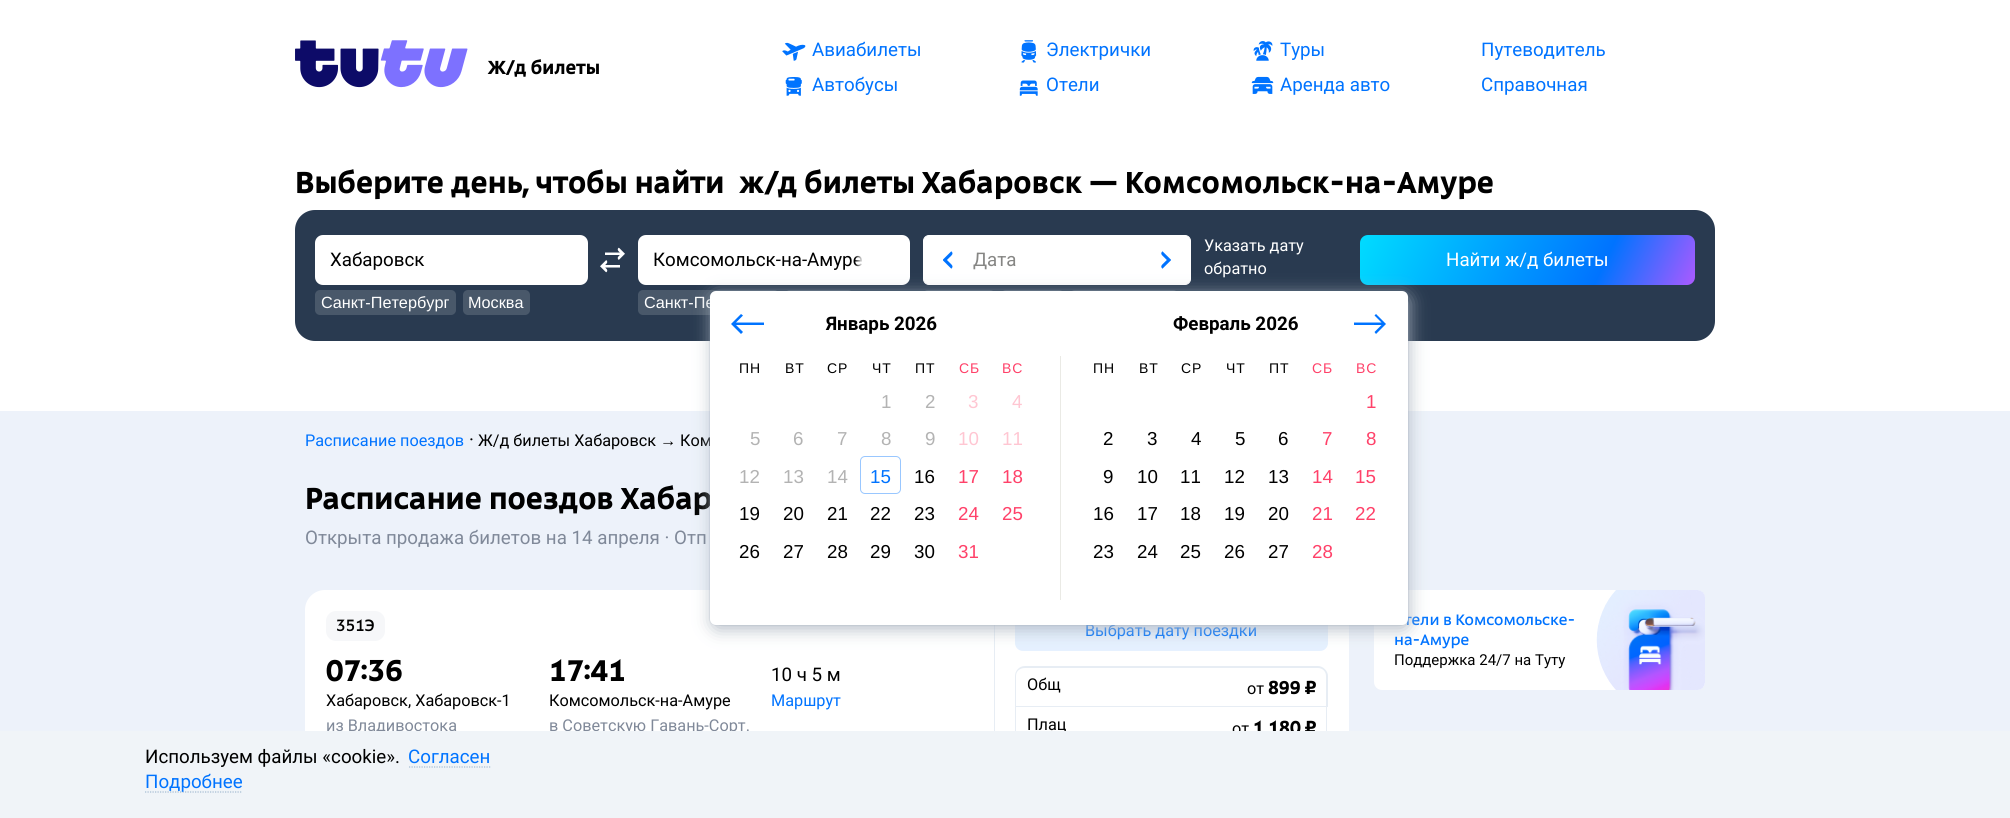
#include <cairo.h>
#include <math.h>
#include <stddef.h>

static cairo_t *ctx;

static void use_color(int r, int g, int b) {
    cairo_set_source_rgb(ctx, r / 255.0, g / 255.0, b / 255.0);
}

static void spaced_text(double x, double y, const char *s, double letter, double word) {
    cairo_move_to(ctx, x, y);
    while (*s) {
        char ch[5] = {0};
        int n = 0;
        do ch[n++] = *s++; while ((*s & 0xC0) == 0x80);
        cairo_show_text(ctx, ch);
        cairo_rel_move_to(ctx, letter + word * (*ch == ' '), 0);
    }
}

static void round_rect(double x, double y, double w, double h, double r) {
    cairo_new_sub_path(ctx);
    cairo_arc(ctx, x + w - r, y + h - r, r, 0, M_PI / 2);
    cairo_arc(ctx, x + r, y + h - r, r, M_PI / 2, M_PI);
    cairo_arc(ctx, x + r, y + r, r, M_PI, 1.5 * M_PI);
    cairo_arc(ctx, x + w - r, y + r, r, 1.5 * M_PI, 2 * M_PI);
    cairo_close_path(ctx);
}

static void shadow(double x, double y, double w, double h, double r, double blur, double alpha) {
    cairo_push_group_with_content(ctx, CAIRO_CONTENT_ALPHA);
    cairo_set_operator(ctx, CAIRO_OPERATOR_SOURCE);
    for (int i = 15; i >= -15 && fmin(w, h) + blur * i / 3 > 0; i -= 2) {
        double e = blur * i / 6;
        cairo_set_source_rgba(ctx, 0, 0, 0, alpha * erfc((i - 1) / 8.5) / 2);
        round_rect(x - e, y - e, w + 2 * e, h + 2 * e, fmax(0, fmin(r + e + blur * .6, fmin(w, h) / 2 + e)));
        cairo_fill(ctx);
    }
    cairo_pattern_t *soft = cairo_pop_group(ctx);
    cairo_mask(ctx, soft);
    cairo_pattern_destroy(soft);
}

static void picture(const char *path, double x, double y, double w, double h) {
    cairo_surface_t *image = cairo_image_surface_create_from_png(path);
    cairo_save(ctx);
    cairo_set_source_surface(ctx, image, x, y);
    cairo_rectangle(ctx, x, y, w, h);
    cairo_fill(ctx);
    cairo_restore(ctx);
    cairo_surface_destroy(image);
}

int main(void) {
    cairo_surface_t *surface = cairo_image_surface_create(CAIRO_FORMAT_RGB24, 2010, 818);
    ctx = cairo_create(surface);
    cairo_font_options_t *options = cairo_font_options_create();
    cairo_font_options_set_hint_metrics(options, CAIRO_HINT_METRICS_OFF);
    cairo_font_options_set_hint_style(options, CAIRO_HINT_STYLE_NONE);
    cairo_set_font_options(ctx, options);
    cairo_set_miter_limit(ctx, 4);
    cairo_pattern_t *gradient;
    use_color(255, 255, 255);
    cairo_paint(ctx);
    picture("img1.png", 295, 40, 173, 48);
    cairo_select_font_face(ctx, "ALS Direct", CAIRO_FONT_SLANT_NORMAL, CAIRO_FONT_WEIGHT_BOLD);
    cairo_set_font_size(ctx, 18.75);
    use_color(0, 0, 0);
    cairo_move_to(ctx, 488, 74);
    cairo_show_text(ctx, "Ж/д билеты");
    picture("img2.png", 782, 42, 24, 19);
    cairo_select_font_face(ctx, "Roboto", CAIRO_FONT_SLANT_NORMAL, CAIRO_FONT_WEIGHT_NORMAL);
    use_color(0, 115, 255);
    cairo_move_to(ctx, 812, 56);
    cairo_show_text(ctx, "Авиабилеты");
    picture("img3.png", 785, 77, 17, 19);
    cairo_move_to(ctx, 812, 91);
    cairo_show_text(ctx, "Автобусы");
    picture("img4.png", 1021, 40, 16, 23);
    cairo_move_to(ctx, 1046, 56);
    cairo_show_text(ctx, "Электрички");
    picture("img5.png", 1019, 80, 19, 16);
    cairo_move_to(ctx, 1046, 91);
    cairo_show_text(ctx, "Отели");
    picture("img6.png", 1253, 41, 20, 20);
    cairo_move_to(ctx, 1280, 56);
    cairo_show_text(ctx, "Туры");
    picture("img7.png", 1251, 76, 23, 18);
    cairo_move_to(ctx, 1280, 91);
    cairo_show_text(ctx, "Аренда авто");
    cairo_move_to(ctx, 1481, 56);
    cairo_show_text(ctx, "Путеводитель");
    cairo_move_to(ctx, 1481, 91);
    cairo_show_text(ctx, "Справочная");
    cairo_select_font_face(ctx, "ALS Direct", CAIRO_FONT_SLANT_NORMAL, CAIRO_FONT_WEIGHT_BOLD);
    cairo_set_font_size(ctx, 30);
    use_color(0, 0, 0);
    cairo_move_to(ctx, 295, 193);
    cairo_show_text(ctx, "Выберите день, чтобы найти");
    cairo_move_to(ctx, 739, 193);
    cairo_show_text(ctx, "ж/д билеты Хабаровск — Комсомольск-на-Амуре");
    use_color(41, 58, 80);
    round_rect(295, 210, 1420, 131, 20);
    cairo_fill(ctx);
    use_color(255, 255, 255);
    round_rect(315, 235, 273, 50, 8);
    cairo_fill(ctx);
    cairo_select_font_face(ctx, "Roboto", CAIRO_FONT_SLANT_NORMAL, CAIRO_FONT_WEIGHT_NORMAL);
    cairo_set_font_size(ctx, 18.75);
    use_color(0, 0, 0);
    cairo_move_to(ctx, 330, 266);
    cairo_show_text(ctx, "Хабаровск");
    use_color(73, 88, 106);
    round_rect(315, 290, 141, 25, 5);
    cairo_fill(ctx);
    cairo_select_font_face(ctx, "Liberation Sans", CAIRO_FONT_SLANT_NORMAL, CAIRO_FONT_WEIGHT_NORMAL);
    cairo_set_font_size(ctx, 16.25);
    use_color(255, 255, 255);
    cairo_move_to(ctx, 321, 308);
    cairo_show_text(ctx, "Санкт-Петербург");
    use_color(73, 88, 106);
    round_rect(463, 290, 67, 25, 5);
    cairo_fill(ctx);
    use_color(255, 255, 255);
    cairo_move_to(ctx, 468, 308);
    cairo_show_text(ctx, "Москва");
    picture("img8.png", 600, 247, 25, 26);
    round_rect(638, 235, 272, 50, 8);
    cairo_fill(ctx);
    cairo_select_font_face(ctx, "Roboto", CAIRO_FONT_SLANT_NORMAL, CAIRO_FONT_WEIGHT_NORMAL);
    cairo_set_font_size(ctx, 18.75);
    use_color(0, 0, 0);
    cairo_move_to(ctx, 653, 266);
    cairo_show_text(ctx, "Комсомольск-на-Амуре");
    gradient = cairo_pattern_create_linear(895, 261, 855, 261);
    cairo_pattern_add_color_stop_rgba(gradient, 0, 1, 1, 1, 1);
    cairo_pattern_add_color_stop_rgba(gradient, 0.5, 1, 1, 1, 1);
    cairo_pattern_add_color_stop_rgba(gradient, 0.85, 1, 1, 1, 0.8);
    cairo_pattern_add_color_stop_rgba(gradient, 1, 1, 1, 1, 0);
    cairo_set_source(ctx, gradient);
    cairo_pattern_destroy(gradient);
    cairo_rectangle(ctx, 855, 255, 7, 12);
    cairo_fill(ctx);
    use_color(73, 88, 106);
    round_rect(638, 290, 141, 25, 5);
    cairo_fill(ctx);
    cairo_select_font_face(ctx, "Liberation Sans", CAIRO_FONT_SLANT_NORMAL, CAIRO_FONT_WEIGHT_NORMAL);
    cairo_set_font_size(ctx, 16.25);
    use_color(255, 255, 255);
    cairo_move_to(ctx, 644, 308);
    cairo_show_text(ctx, "Санкт-Пе");
    use_color(73, 88, 106);
    round_rect(785, 290, 68, 25, 5);
    cairo_fill(ctx);
    cairo_select_font_face(ctx, "Roboto", CAIRO_FONT_SLANT_NORMAL, CAIRO_FONT_WEIGHT_NORMAL);
    use_color(255, 255, 255);
    cairo_move_to(ctx, 1204, 251);
    cairo_show_text(ctx, "Указать дату");
    cairo_move_to(ctx, 1204, 274);
    cairo_show_text(ctx, "обратно");
    gradient = cairo_pattern_create_linear(1389, 173, 1760, 347);
    cairo_pattern_add_color_stop_rgba(gradient, 0, 0, 0.863, 1, 1);
    cairo_pattern_add_color_stop_rgba(gradient, 0.57, 0, 0.451, 1, 1);
    cairo_pattern_add_color_stop_rgba(gradient, 0.79, 0.667, 0.353, 1, 1);
    cairo_pattern_add_color_stop_rgba(gradient, 1, 1, 0.255, 0.412, 1);
    cairo_set_source(ctx, gradient);
    cairo_pattern_destroy(gradient);
    round_rect(1360, 235, 335, 50, 8);
    cairo_fill(ctx);
    cairo_set_font_size(ctx, 18.75);
    use_color(255, 255, 255);
    cairo_move_to(ctx, 1446, 266);
    cairo_show_text(ctx, "Найти ж/д билеты");
    cairo_new_path(ctx);
    cairo_move_to(ctx, 929, 235.5);
    cairo_line_to(ctx, 972.5, 235.5);
    cairo_line_to(ctx, 972.5, 284.5);
    cairo_line_to(ctx, 929, 284.5);
    cairo_curve_to(ctx, 926, 284.5, 923.5, 282, 923.5, 279);
    cairo_line_to(ctx, 923.5, 241);
    cairo_curve_to(ctx, 923.5, 238, 926, 235.5, 929, 235.5);
    cairo_close_path(ctx);
    cairo_fill_preserve(ctx);
    cairo_set_line_width(ctx, 1);
    cairo_stroke(ctx);
    picture("img9.png", 943, 251, 10, 18);
    cairo_rectangle(ctx, 973, 235, 168, 50);
    cairo_fill(ctx);
    use_color(134, 134, 132);
    cairo_move_to(ctx, 973, 266);
    cairo_show_text(ctx, "Дата");
    use_color(255, 255, 255);
    cairo_new_path(ctx);
    cairo_move_to(ctx, 1141.5, 235.5);
    cairo_line_to(ctx, 1185, 235.5);
    cairo_curve_to(ctx, 1188, 235.5, 1190.5, 238, 1190.5, 241);
    cairo_line_to(ctx, 1190.5, 279);
    cairo_curve_to(ctx, 1190.5, 282, 1188, 284.5, 1185, 284.5);
    cairo_line_to(ctx, 1141.5, 284.5);
    cairo_close_path(ctx);
    cairo_fill_preserve(ctx);
    cairo_stroke(ctx);
    picture("img10.png", 1161, 251, 10, 18);
    use_color(73, 88, 106);
    round_rect(923, 290, 72, 25, 5);
    cairo_fill(ctx);
    round_rect(1001, 290, 63, 25, 5);
    cairo_fill(ctx);
    round_rect(1070, 290, 108, 25, 5);
    cairo_fill(ctx);
    use_color(237, 242, 250);
    cairo_rectangle(ctx, 0, 411, 2010, 320);
    cairo_fill(ctx);
    cairo_set_font_size(ctx, 16.25);
    use_color(0, 0, 0);
    cairo_move_to(ctx, 680, 446);
    cairo_show_text(ctx, "Ком");
    cairo_select_font_face(ctx, "ALS Direct", CAIRO_FONT_SLANT_NORMAL, CAIRO_FONT_WEIGHT_BOLD);
    cairo_set_font_size(ctx, 30);
    cairo_move_to(ctx, 305, 509);
    cairo_show_text(ctx, "Расписание поездов Хабар");
    use_color(255, 255, 255);
    round_rect(305, 590, 1044, 218, 20);
    cairo_fill(ctx);
    use_color(231, 237, 244);
    cairo_rectangle(ctx, 994, 625, 1, 106);
    cairo_fill(ctx);
    use_color(230, 241, 255);
    round_rect(1015, 611, 313, 40, 8);
    cairo_fill(ctx);
    cairo_select_font_face(ctx, "Roboto", CAIRO_FONT_SLANT_NORMAL, CAIRO_FONT_WEIGHT_NORMAL);
    cairo_set_font_size(ctx, 16.25);
    use_color(0, 115, 255);
    cairo_move_to(ctx, 1085, 636);
    cairo_show_text(ctx, "Выбрать дату поездки");
    use_color(255, 255, 255);
    round_rect(1374, 590, 331, 100, 8);
    cairo_fill(ctx);
    cairo_select_font_face(ctx, "ALS Direct", CAIRO_FONT_SLANT_NORMAL, CAIRO_FONT_WEIGHT_NORMAL);
    cairo_set_font_size(ctx, 15);
    use_color(0, 115, 255);
    cairo_move_to(ctx, 1404, 625);
    cairo_show_text(ctx, "тели в Комсомольске-");
    round_rect(709.5, 290.5, 699, 335, 7.5);
    cairo_set_source_rgba(ctx, 0.259, 0.38, 0.482, 0.1);
    cairo_stroke(ctx);
    use_color(173, 182, 193);
    shadow(713, 296, 695, 332, 5, 9, 1);
    use_color(255, 255, 255);
    round_rect(710, 291, 698, 334, 6);
    cairo_fill(ctx);
    use_color(0, 115, 255);
    cairo_new_path(ctx);
    cairo_move_to(ctx, 741, 314);
    cairo_line_to(ctx, 743, 315.5);
    cairo_line_to(ctx, 736, 322.5);
    cairo_line_to(ctx, 764, 322.5);
    cairo_line_to(ctx, 764, 325);
    cairo_line_to(ctx, 736, 325);
    cairo_line_to(ctx, 743, 332);
    cairo_line_to(ctx, 741, 334);
    cairo_line_to(ctx, 731, 324);
    cairo_close_path(ctx);
    cairo_fill(ctx);
    cairo_new_path(ctx);
    cairo_move_to(ctx, 1376, 314);
    cairo_line_to(ctx, 1374.5, 315.5);
    cairo_line_to(ctx, 1381.5, 322.5);
    cairo_line_to(ctx, 1354, 322.5);
    cairo_line_to(ctx, 1354, 325);
    cairo_line_to(ctx, 1381.5, 325);
    cairo_line_to(ctx, 1374.5, 332);
    cairo_line_to(ctx, 1376, 334);
    cairo_line_to(ctx, 1386, 324);
    cairo_close_path(ctx);
    cairo_fill(ctx);
    cairo_select_font_face(ctx, "Roboto", CAIRO_FONT_SLANT_NORMAL, CAIRO_FONT_WEIGHT_BOLD);
    cairo_set_font_size(ctx, 18.75);
    use_color(0, 0, 0);
    cairo_move_to(ctx, 826, 330);
    cairo_show_text(ctx, "Январь 2026");
    cairo_select_font_face(ctx, "Liberation Sans", CAIRO_FONT_SLANT_NORMAL, CAIRO_FONT_WEIGHT_NORMAL);
    cairo_set_font_size(ctx, 14);
    spaced_text(739, 373, "ПН", 1, 0);
    spaced_text(785, 373, "ВТ", 1, 0);
    spaced_text(827, 373, "СР", 1, 0);
    spaced_text(872, 373, "ЧТ", 1, 0);
    spaced_text(915, 373, "ПТ", 1, 0);
    use_color(255, 65, 105);
    spaced_text(959, 373, "СБ", 1, 0);
    spaced_text(1002, 373, "ВС", 1, 0);
    cairo_set_font_size(ctx, 18.75);
    use_color(179, 179, 179);
    cairo_move_to(ctx, 881, 408);
    cairo_show_text(ctx, "1");
    cairo_move_to(ctx, 925, 408);
    cairo_show_text(ctx, "2");
    use_color(255, 198, 210);
    cairo_move_to(ctx, 968, 408);
    cairo_show_text(ctx, "3");
    cairo_move_to(ctx, 1012, 408);
    cairo_show_text(ctx, "4");
    use_color(179, 179, 179);
    cairo_move_to(ctx, 750, 445);
    cairo_show_text(ctx, "5");
    cairo_move_to(ctx, 793, 445);
    cairo_show_text(ctx, "6");
    cairo_move_to(ctx, 837, 445);
    cairo_show_text(ctx, "7");
    cairo_move_to(ctx, 881, 445);
    cairo_show_text(ctx, "8");
    cairo_move_to(ctx, 925, 445);
    cairo_show_text(ctx, "9");
    use_color(255, 198, 210);
    cairo_move_to(ctx, 958, 445);
    cairo_show_text(ctx, "10");
    cairo_move_to(ctx, 1002, 445);
    cairo_show_text(ctx, "11");
    use_color(179, 179, 179);
    cairo_move_to(ctx, 739, 483);
    cairo_show_text(ctx, "12");
    cairo_move_to(ctx, 783, 483);
    cairo_show_text(ctx, "13");
    cairo_move_to(ctx, 827, 483);
    cairo_show_text(ctx, "14");
    round_rect(860.5, 456.5, 40, 37, 4.5);
    use_color(153, 199, 255);
    cairo_stroke(ctx);
    use_color(0, 115, 255);
    cairo_move_to(ctx, 870, 483);
    cairo_show_text(ctx, "15");
    use_color(0, 0, 0);
    cairo_move_to(ctx, 914, 483);
    cairo_show_text(ctx, "16");
    use_color(255, 65, 105);
    cairo_move_to(ctx, 958, 483);
    cairo_show_text(ctx, "17");
    cairo_move_to(ctx, 1002, 483);
    cairo_show_text(ctx, "18");
    use_color(0, 0, 0);
    cairo_move_to(ctx, 739, 520);
    cairo_show_text(ctx, "19");
    cairo_move_to(ctx, 783, 520);
    cairo_show_text(ctx, "20");
    cairo_move_to(ctx, 827, 520);
    cairo_show_text(ctx, "21");
    cairo_move_to(ctx, 870, 520);
    cairo_show_text(ctx, "22");
    cairo_move_to(ctx, 914, 520);
    cairo_show_text(ctx, "23");
    use_color(255, 65, 105);
    cairo_move_to(ctx, 958, 520);
    cairo_show_text(ctx, "24");
    cairo_move_to(ctx, 1002, 520);
    cairo_show_text(ctx, "25");
    use_color(0, 0, 0);
    cairo_move_to(ctx, 739, 558);
    cairo_show_text(ctx, "26");
    cairo_move_to(ctx, 783, 558);
    cairo_show_text(ctx, "27");
    cairo_move_to(ctx, 827, 558);
    cairo_show_text(ctx, "28");
    cairo_move_to(ctx, 870, 558);
    cairo_show_text(ctx, "29");
    cairo_move_to(ctx, 914, 558);
    cairo_show_text(ctx, "30");
    use_color(255, 65, 105);
    cairo_move_to(ctx, 958, 558);
    cairo_show_text(ctx, "31");
    use_color(234, 234, 229);
    cairo_rectangle(ctx, 1060, 356, 1, 244);
    cairo_fill(ctx);
    cairo_select_font_face(ctx, "Roboto", CAIRO_FONT_SLANT_NORMAL, CAIRO_FONT_WEIGHT_BOLD);
    use_color(0, 0, 0);
    cairo_move_to(ctx, 1173, 330);
    cairo_show_text(ctx, "Февраль 2026");
    cairo_select_font_face(ctx, "Liberation Sans", CAIRO_FONT_SLANT_NORMAL, CAIRO_FONT_WEIGHT_NORMAL);
    cairo_set_font_size(ctx, 14);
    spaced_text(1093, 373, "ПН", 1, 0);
    spaced_text(1139, 373, "ВТ", 1, 0);
    spaced_text(1181, 373, "СР", 1, 0);
    spaced_text(1226, 373, "ЧТ", 1, 0);
    spaced_text(1269, 373, "ПТ", 1, 0);
    use_color(255, 65, 105);
    spaced_text(1312, 373, "СБ", 1, 0);
    spaced_text(1356, 373, "ВС", 1, 0);
    cairo_set_font_size(ctx, 18.75);
    cairo_move_to(ctx, 1366, 408);
    cairo_show_text(ctx, "1");
    use_color(0, 0, 0);
    cairo_move_to(ctx, 1103, 445);
    cairo_show_text(ctx, "2");
    cairo_move_to(ctx, 1147, 445);
    cairo_show_text(ctx, "3");
    cairo_move_to(ctx, 1191, 445);
    cairo_show_text(ctx, "4");
    cairo_move_to(ctx, 1235, 445);
    cairo_show_text(ctx, "5");
    cairo_move_to(ctx, 1278, 445);
    cairo_show_text(ctx, "6");
    use_color(255, 65, 105);
    cairo_move_to(ctx, 1322, 445);
    cairo_show_text(ctx, "7");
    cairo_move_to(ctx, 1366, 445);
    cairo_show_text(ctx, "8");
    use_color(0, 0, 0);
    cairo_move_to(ctx, 1103, 483);
    cairo_show_text(ctx, "9");
    cairo_move_to(ctx, 1137, 483);
    cairo_show_text(ctx, "10");
    cairo_move_to(ctx, 1180, 483);
    cairo_show_text(ctx, "11");
    cairo_move_to(ctx, 1224, 483);
    cairo_show_text(ctx, "12");
    cairo_move_to(ctx, 1268, 483);
    cairo_show_text(ctx, "13");
    use_color(255, 65, 105);
    cairo_move_to(ctx, 1312, 483);
    cairo_show_text(ctx, "14");
    cairo_move_to(ctx, 1355, 483);
    cairo_show_text(ctx, "15");
    use_color(0, 0, 0);
    cairo_move_to(ctx, 1093, 520);
    cairo_show_text(ctx, "16");
    cairo_move_to(ctx, 1137, 520);
    cairo_show_text(ctx, "17");
    cairo_move_to(ctx, 1180, 520);
    cairo_show_text(ctx, "18");
    cairo_move_to(ctx, 1224, 520);
    cairo_show_text(ctx, "19");
    cairo_move_to(ctx, 1268, 520);
    cairo_show_text(ctx, "20");
    use_color(255, 65, 105);
    cairo_move_to(ctx, 1312, 520);
    cairo_show_text(ctx, "21");
    cairo_move_to(ctx, 1355, 520);
    cairo_show_text(ctx, "22");
    use_color(0, 0, 0);
    cairo_move_to(ctx, 1093, 558);
    cairo_show_text(ctx, "23");
    cairo_move_to(ctx, 1137, 558);
    cairo_show_text(ctx, "24");
    cairo_move_to(ctx, 1180, 558);
    cairo_show_text(ctx, "25");
    cairo_move_to(ctx, 1224, 558);
    cairo_show_text(ctx, "26");
    cairo_move_to(ctx, 1268, 558);
    cairo_show_text(ctx, "27");
    use_color(255, 65, 105);
    cairo_move_to(ctx, 1312, 558);
    cairo_show_text(ctx, "28");
    cairo_select_font_face(ctx, "Roboto", CAIRO_FONT_SLANT_NORMAL, CAIRO_FONT_WEIGHT_NORMAL);
    cairo_set_font_size(ctx, 16.25);
    use_color(0, 115, 255);
    cairo_move_to(ctx, 305, 446);
    cairo_show_text(ctx, "Расписание поездов");
    cairo_set_font_size(ctx, 18.75);
    use_color(0, 0, 0);
    cairo_move_to(ctx, 469, 446);
    cairo_show_text(ctx, "·");
    cairo_set_font_size(ctx, 16.25);
    cairo_move_to(ctx, 478, 446);
    cairo_show_text(ctx, "Ж/д билеты Хабаровск");
    cairo_select_font_face(ctx, "Liberation Sans", CAIRO_FONT_SLANT_NORMAL, CAIRO_FONT_WEIGHT_NORMAL);
    cairo_move_to(ctx, 660, 446);
    cairo_show_text(ctx, "→");
    cairo_select_font_face(ctx, "Roboto", CAIRO_FONT_SLANT_NORMAL, CAIRO_FONT_WEIGHT_NORMAL);
    cairo_set_font_size(ctx, 18.75);
    use_color(128, 137, 153);
    cairo_move_to(ctx, 305, 544);
    cairo_show_text(ctx, "Открыта продажа билетов на 14 апреля · Отп");
    use_color(246, 247, 249);
    round_rect(326, 611, 59, 30, 10);
    cairo_fill(ctx);
    cairo_select_font_face(ctx, "ALS Direct", CAIRO_FONT_SLANT_NORMAL, CAIRO_FONT_WEIGHT_NORMAL);
    cairo_set_font_size(ctx, 16.25);
    use_color(0, 0, 0);
    cairo_move_to(ctx, 336, 631);
    cairo_show_text(ctx, "351Э");
    use_color(231, 237, 244);
    cairo_set_fill_rule(ctx, CAIRO_FILL_RULE_EVEN_ODD);
    cairo_new_path(ctx);
    cairo_move_to(ctx, 1025, 666);
    cairo_line_to(ctx, 1318, 666);
    cairo_curve_to(ctx, 1323, 666, 1328, 671, 1328, 676);
    cairo_line_to(ctx, 1328, 706);
    cairo_line_to(ctx, 1015, 706);
    cairo_line_to(ctx, 1015, 676);
    cairo_curve_to(ctx, 1015, 671, 1019, 666, 1025, 666);
    cairo_close_path(ctx);
    cairo_move_to(ctx, 1025, 668);
    cairo_line_to(ctx, 1318, 668);
    cairo_curve_to(ctx, 1322, 668, 1326, 671, 1326, 676);
    cairo_line_to(ctx, 1326, 706);
    cairo_line_to(ctx, 1016, 706);
    cairo_line_to(ctx, 1016, 676);
    cairo_curve_to(ctx, 1016, 671, 1020, 668, 1025, 668);
    cairo_close_path(ctx);
    cairo_fill(ctx);
    cairo_select_font_face(ctx, "Roboto", CAIRO_FONT_SLANT_NORMAL, CAIRO_FONT_WEIGHT_NORMAL);
    use_color(0, 0, 0);
    cairo_move_to(ctx, 1027, 690);
    cairo_show_text(ctx, "Общ");
    cairo_move_to(ctx, 1247, 694);
    cairo_show_text(ctx, "от");
    cairo_select_font_face(ctx, "ALS Direct", CAIRO_FONT_SLANT_NORMAL, CAIRO_FONT_WEIGHT_BOLD);
    cairo_set_font_size(ctx, 18.75);
    cairo_move_to(ctx, 1268, 694);
    cairo_show_text(ctx, "899 ₽");
    use_color(231, 237, 244);
    cairo_rectangle(ctx, 1015, 706, 313, 1);
    cairo_fill(ctx);
    cairo_rectangle(ctx, 1326, 706, 1, 25);
    cairo_fill(ctx);
    cairo_rectangle(ctx, 1015, 706, 1, 25);
    cairo_fill(ctx);
    cairo_select_font_face(ctx, "Roboto", CAIRO_FONT_SLANT_NORMAL, CAIRO_FONT_WEIGHT_NORMAL);
    cairo_set_font_size(ctx, 16.25);
    use_color(0, 0, 0);
    cairo_move_to(ctx, 1027, 730);
    cairo_show_text(ctx, "Плац");
    cairo_move_to(ctx, 1232, 734);
    cairo_show_text(ctx, "от");
    cairo_select_font_face(ctx, "ALS Direct", CAIRO_FONT_SLANT_NORMAL, CAIRO_FONT_WEIGHT_BOLD);
    cairo_set_font_size(ctx, 18.75);
    cairo_move_to(ctx, 1253, 734);
    cairo_show_text(ctx, "1 180 ₽");
    cairo_set_font_size(ctx, 30);
    cairo_move_to(ctx, 326, 681);
    cairo_show_text(ctx, "07:36");
    cairo_select_font_face(ctx, "Roboto", CAIRO_FONT_SLANT_NORMAL, CAIRO_FONT_WEIGHT_NORMAL);
    cairo_set_font_size(ctx, 16.25);
    cairo_move_to(ctx, 326, 706);
    cairo_show_text(ctx, "Хабаровск");
    cairo_move_to(ctx, 408, 706);
    cairo_show_text(ctx, ", Хабаровск-1");
    use_color(128, 137, 153);
    cairo_move_to(ctx, 326, 731);
    cairo_show_text(ctx, "из Владивостока");
    cairo_select_font_face(ctx, "ALS Direct", CAIRO_FONT_SLANT_NORMAL, CAIRO_FONT_WEIGHT_BOLD);
    cairo_set_font_size(ctx, 30);
    use_color(0, 0, 0);
    cairo_move_to(ctx, 549, 681);
    cairo_show_text(ctx, "17:41");
    cairo_select_font_face(ctx, "Roboto", CAIRO_FONT_SLANT_NORMAL, CAIRO_FONT_WEIGHT_NORMAL);
    cairo_set_font_size(ctx, 16.25);
    cairo_move_to(ctx, 549, 706);
    cairo_show_text(ctx, "Комсомольск-на-Амуре");
    use_color(128, 137, 153);
    cairo_move_to(ctx, 549, 731);
    cairo_show_text(ctx, "в Советскую Гавань-Сорт.");
    cairo_set_font_size(ctx, 18.75);
    use_color(0, 0, 0);
    cairo_move_to(ctx, 771, 681);
    cairo_show_text(ctx, "10 ч 5 м");
    cairo_set_font_size(ctx, 16.25);
    use_color(0, 115, 255);
    cairo_move_to(ctx, 771, 706);
    cairo_show_text(ctx, "Маршрут");
    cairo_select_font_face(ctx, "ALS Direct", CAIRO_FONT_SLANT_NORMAL, CAIRO_FONT_WEIGHT_NORMAL);
    cairo_set_font_size(ctx, 15);
    cairo_move_to(ctx, 1394, 645);
    cairo_show_text(ctx, "на-Амуре");
    cairo_select_font_face(ctx, "Roboto", CAIRO_FONT_SLANT_NORMAL, CAIRO_FONT_WEIGHT_NORMAL);
    use_color(0, 0, 0);
    cairo_move_to(ctx, 1394, 665);
    cairo_show_text(ctx, "Поддержка 24/7 на Туту");
    picture("img11.png", 1596, 590, 109, 100);
    use_color(240, 244, 248);
    cairo_rectangle(ctx, 0, 731, 2010, 87);
    cairo_fill(ctx);
    cairo_set_font_size(ctx, 18.75);
    use_color(0, 0, 0);
    cairo_move_to(ctx, 145, 763);
    cairo_show_text(ctx, "Используем файлы «cookie».");
    cairo_new_path(ctx);
    cairo_move_to(ctx, 409, 767);
    cairo_line_to(ctx, 491, 767);
    use_color(164, 187, 210);
    cairo_set_line_width(ctx, 1.2);
    cairo_set_dash(ctx, (double[]){1.25, 1.25}, 2, 0);
    cairo_stroke(ctx);
    use_color(0, 115, 255);
    cairo_move_to(ctx, 408, 763);
    cairo_show_text(ctx, "Согласен");
    cairo_new_path(ctx);
    cairo_move_to(ctx, 145, 792);
    cairo_line_to(ctx, 242.5, 792);
    use_color(164, 187, 210);
    cairo_stroke(ctx);
    use_color(0, 115, 255);
    cairo_move_to(ctx, 145, 788);
    cairo_show_text(ctx, "Подробнее");
    cairo_surface_write_to_png(surface, "result.png");
    cairo_font_options_destroy(options);
    cairo_destroy(ctx);
    cairo_surface_destroy(surface);
    return 0;
}
